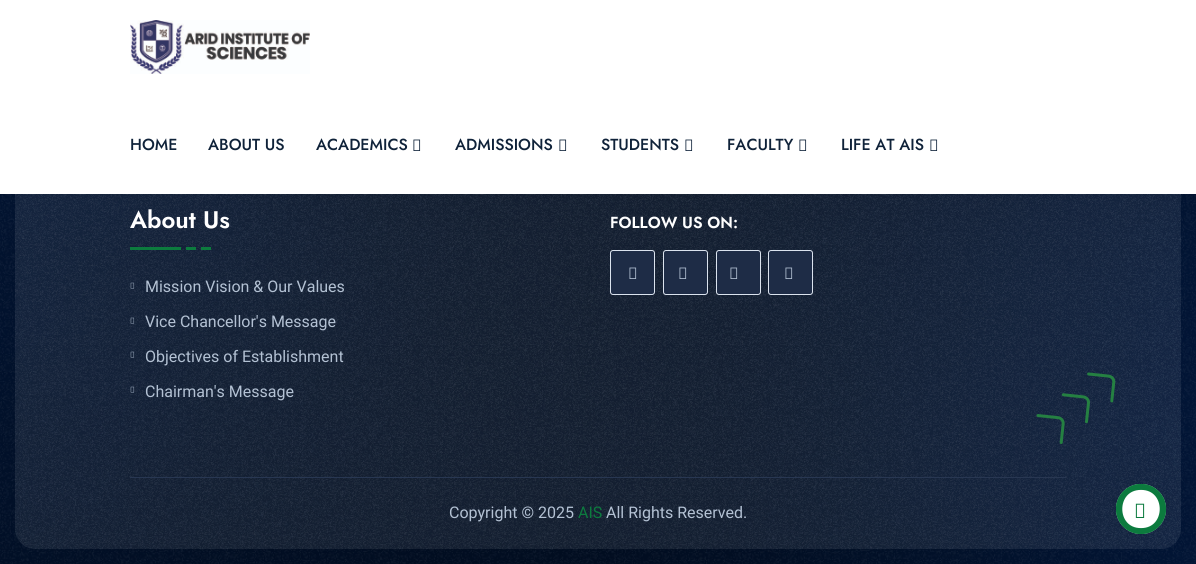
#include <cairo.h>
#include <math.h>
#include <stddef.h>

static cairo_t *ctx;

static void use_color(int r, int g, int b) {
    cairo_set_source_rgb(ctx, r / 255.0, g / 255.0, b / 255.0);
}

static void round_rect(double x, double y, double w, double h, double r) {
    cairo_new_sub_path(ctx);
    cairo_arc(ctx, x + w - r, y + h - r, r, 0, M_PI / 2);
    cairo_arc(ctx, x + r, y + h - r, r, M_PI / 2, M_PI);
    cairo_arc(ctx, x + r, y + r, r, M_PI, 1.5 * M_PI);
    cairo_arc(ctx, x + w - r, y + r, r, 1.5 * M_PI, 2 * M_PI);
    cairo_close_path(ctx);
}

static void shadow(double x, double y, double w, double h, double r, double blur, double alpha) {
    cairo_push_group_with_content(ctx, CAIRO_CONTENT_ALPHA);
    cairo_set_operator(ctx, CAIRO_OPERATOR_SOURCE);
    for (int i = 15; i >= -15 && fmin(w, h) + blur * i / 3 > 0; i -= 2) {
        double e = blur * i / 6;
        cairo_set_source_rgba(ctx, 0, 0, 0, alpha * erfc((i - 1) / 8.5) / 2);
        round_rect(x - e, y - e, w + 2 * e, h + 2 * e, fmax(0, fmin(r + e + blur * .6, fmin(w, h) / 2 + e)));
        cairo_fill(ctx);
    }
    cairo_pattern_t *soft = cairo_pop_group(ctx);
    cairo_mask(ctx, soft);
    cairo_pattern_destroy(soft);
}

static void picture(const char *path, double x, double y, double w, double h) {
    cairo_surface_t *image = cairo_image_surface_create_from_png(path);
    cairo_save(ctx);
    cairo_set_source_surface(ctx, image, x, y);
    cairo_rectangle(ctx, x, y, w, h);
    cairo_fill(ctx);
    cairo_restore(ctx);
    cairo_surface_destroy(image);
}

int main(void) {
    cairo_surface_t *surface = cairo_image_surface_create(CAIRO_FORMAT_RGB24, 1196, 564);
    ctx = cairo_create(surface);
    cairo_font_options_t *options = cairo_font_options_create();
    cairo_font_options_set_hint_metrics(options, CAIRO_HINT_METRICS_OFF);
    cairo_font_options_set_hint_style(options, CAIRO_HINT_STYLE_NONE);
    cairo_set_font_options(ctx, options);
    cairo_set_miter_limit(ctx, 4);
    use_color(255, 255, 255);
    cairo_paint(ctx);
    picture("img3.png", 0, 194, 1196, 370);
    picture("img4.png", 15, 194, 1166, 355);
    use_color(0, 0, 0);
    shadow(0, 0, 1196, 194, 0, 5, 0.07);
    use_color(255, 255, 255);
    cairo_rectangle(ctx, 0, 0, 1196, 194);
    cairo_fill(ctx);
    picture("img1.png", 130, 20, 180, 54);
    cairo_select_font_face(ctx, "Jost Medium", CAIRO_FONT_SLANT_NORMAL, CAIRO_FONT_WEIGHT_NORMAL);
    cairo_set_font_size(ctx, 16);
    use_color(15, 34, 57);
    cairo_move_to(ctx, 130, 150);
    cairo_show_text(ctx, "HOME");
    cairo_move_to(ctx, 208, 150);
    cairo_show_text(ctx, "ABOUT US");
    cairo_move_to(ctx, 316, 150);
    cairo_show_text(ctx, "ACADEMICS");
    picture("img2.png", 413, 139, 8, 12);
    cairo_move_to(ctx, 455, 150);
    cairo_show_text(ctx, "ADMISSIONS");
    picture("img2.png", 559, 139, 8, 12);
    cairo_move_to(ctx, 601, 150);
    cairo_show_text(ctx, "STUDENTS");
    picture("img2.png", 685, 139, 8, 12);
    cairo_move_to(ctx, 727, 150);
    cairo_show_text(ctx, "FACULTY");
    picture("img2.png", 799, 139, 8, 12);
    cairo_move_to(ctx, 841, 150);
    cairo_show_text(ctx, "LIFE AT AIS");
    picture("img2.png", 930, 139, 8, 12);
    cairo_select_font_face(ctx, "Jost SemiBold", CAIRO_FONT_SLANT_NORMAL, CAIRO_FONT_WEIGHT_NORMAL);
    cairo_set_font_size(ctx, 24);
    use_color(255, 255, 255);
    cairo_move_to(ctx, 130, 228);
    cairo_show_text(ctx, "About Us");
    use_color(12, 123, 62);
    cairo_rectangle(ctx, 130, 247, 51, 3);
    cairo_fill(ctx);
    cairo_rectangle(ctx, 201, 247, 10, 3);
    cairo_fill(ctx);
    cairo_rectangle(ctx, 186, 247, 10, 3);
    cairo_fill(ctx);
    picture("img5.png", 130, 282, 5, 7);
    cairo_select_font_face(ctx, "Roboto", CAIRO_FONT_SLANT_NORMAL, CAIRO_FONT_WEIGHT_NORMAL);
    cairo_set_font_size(ctx, 16);
    use_color(179, 193, 211);
    cairo_move_to(ctx, 145, 292);
    cairo_show_text(ctx, "Mission Vision & Our Values");
    picture("img6.png", 130, 317, 5, 7);
    cairo_move_to(ctx, 145, 327);
    cairo_show_text(ctx, "Vice Chancellor's Message");
    picture("img7.png", 130, 351, 5, 7);
    cairo_move_to(ctx, 145, 362);
    cairo_show_text(ctx, "Objectives of Establishment");
    picture("img8.png", 130, 386, 5, 7);
    cairo_move_to(ctx, 145, 397);
    cairo_show_text(ctx, "Chairman's Message");
    cairo_select_font_face(ctx, "Jost SemiBold", CAIRO_FONT_SLANT_NORMAL, CAIRO_FONT_WEIGHT_NORMAL);
    use_color(255, 255, 255);
    cairo_move_to(ctx, 610, 228);
    cairo_show_text(ctx, "FOLLOW US ON:");
    use_color(30, 44, 70);
    round_rect(610.5, 250.5, 44, 44, 2.5);
    cairo_fill_preserve(ctx);
    use_color(219, 227, 238);
    cairo_set_line_width(ctx, 1);
    cairo_stroke(ctx);
    picture("img9.png", 629, 267, 8, 12);
    use_color(30, 44, 70);
    round_rect(663.5, 250.5, 44, 44, 2.5);
    cairo_fill_preserve(ctx);
    use_color(219, 227, 238);
    cairo_stroke(ctx);
    picture("img9.png", 679, 267, 8, 12);
    use_color(30, 44, 70);
    round_rect(716.5, 250.5, 44, 44, 2.5);
    cairo_fill_preserve(ctx);
    use_color(219, 227, 238);
    cairo_stroke(ctx);
    picture("img9.png", 730, 267, 8, 12);
    use_color(30, 44, 70);
    round_rect(768.5, 250.5, 44, 44, 2.5);
    cairo_fill_preserve(ctx);
    use_color(219, 227, 238);
    cairo_stroke(ctx);
    picture("img9.png", 785, 267, 8, 12);
    use_color(40, 55, 82);
    cairo_rectangle(ctx, 130, 477, 936, 1);
    cairo_fill(ctx);
    cairo_select_font_face(ctx, "Roboto", CAIRO_FONT_SLANT_NORMAL, CAIRO_FONT_WEIGHT_NORMAL);
    use_color(179, 193, 211);
    cairo_move_to(ctx, 449, 518);
    cairo_show_text(ctx, "Copyright © 2025");
    use_color(12, 123, 62);
    cairo_move_to(ctx, 578, 518);
    cairo_show_text(ctx, "AIS");
    use_color(179, 193, 211);
    cairo_move_to(ctx, 606, 518);
    cairo_show_text(ctx, "All Rights Reserved.");
    picture("img10.png", 1036, 372, 80, 72);
    use_color(255, 255, 255);
    cairo_arc(ctx, 1141, 509, 25, 0, 2 * M_PI);
    cairo_fill(ctx);
    cairo_save(ctx);
    round_rect(1116, 484, 50, 50, 25);
    cairo_clip(ctx);
    cairo_new_path(ctx);
    cairo_move_to(ctx, 1141, 485);
    cairo_curve_to(ctx, 1172.5, 485, 1172.5, 533, 1141, 533);
    cairo_curve_to(ctx, 1109.5, 533, 1109.5, 485, 1141, 485);
    use_color(12, 123, 62);
    cairo_set_line_width(ctx, 9.8);
    cairo_stroke(ctx);
    cairo_restore(ctx);
    cairo_arc(ctx, 1141, 509, 24, 0, 2 * M_PI);
    use_color(12, 123, 62);
    cairo_set_line_width(ctx, 2);
    cairo_stroke(ctx);
    picture("img11.png", 1135, 503, 10, 15);
    cairo_surface_write_to_png(surface, "result.png");
    cairo_font_options_destroy(options);
    cairo_destroy(ctx);
    cairo_surface_destroy(surface);
    return 0;
}
